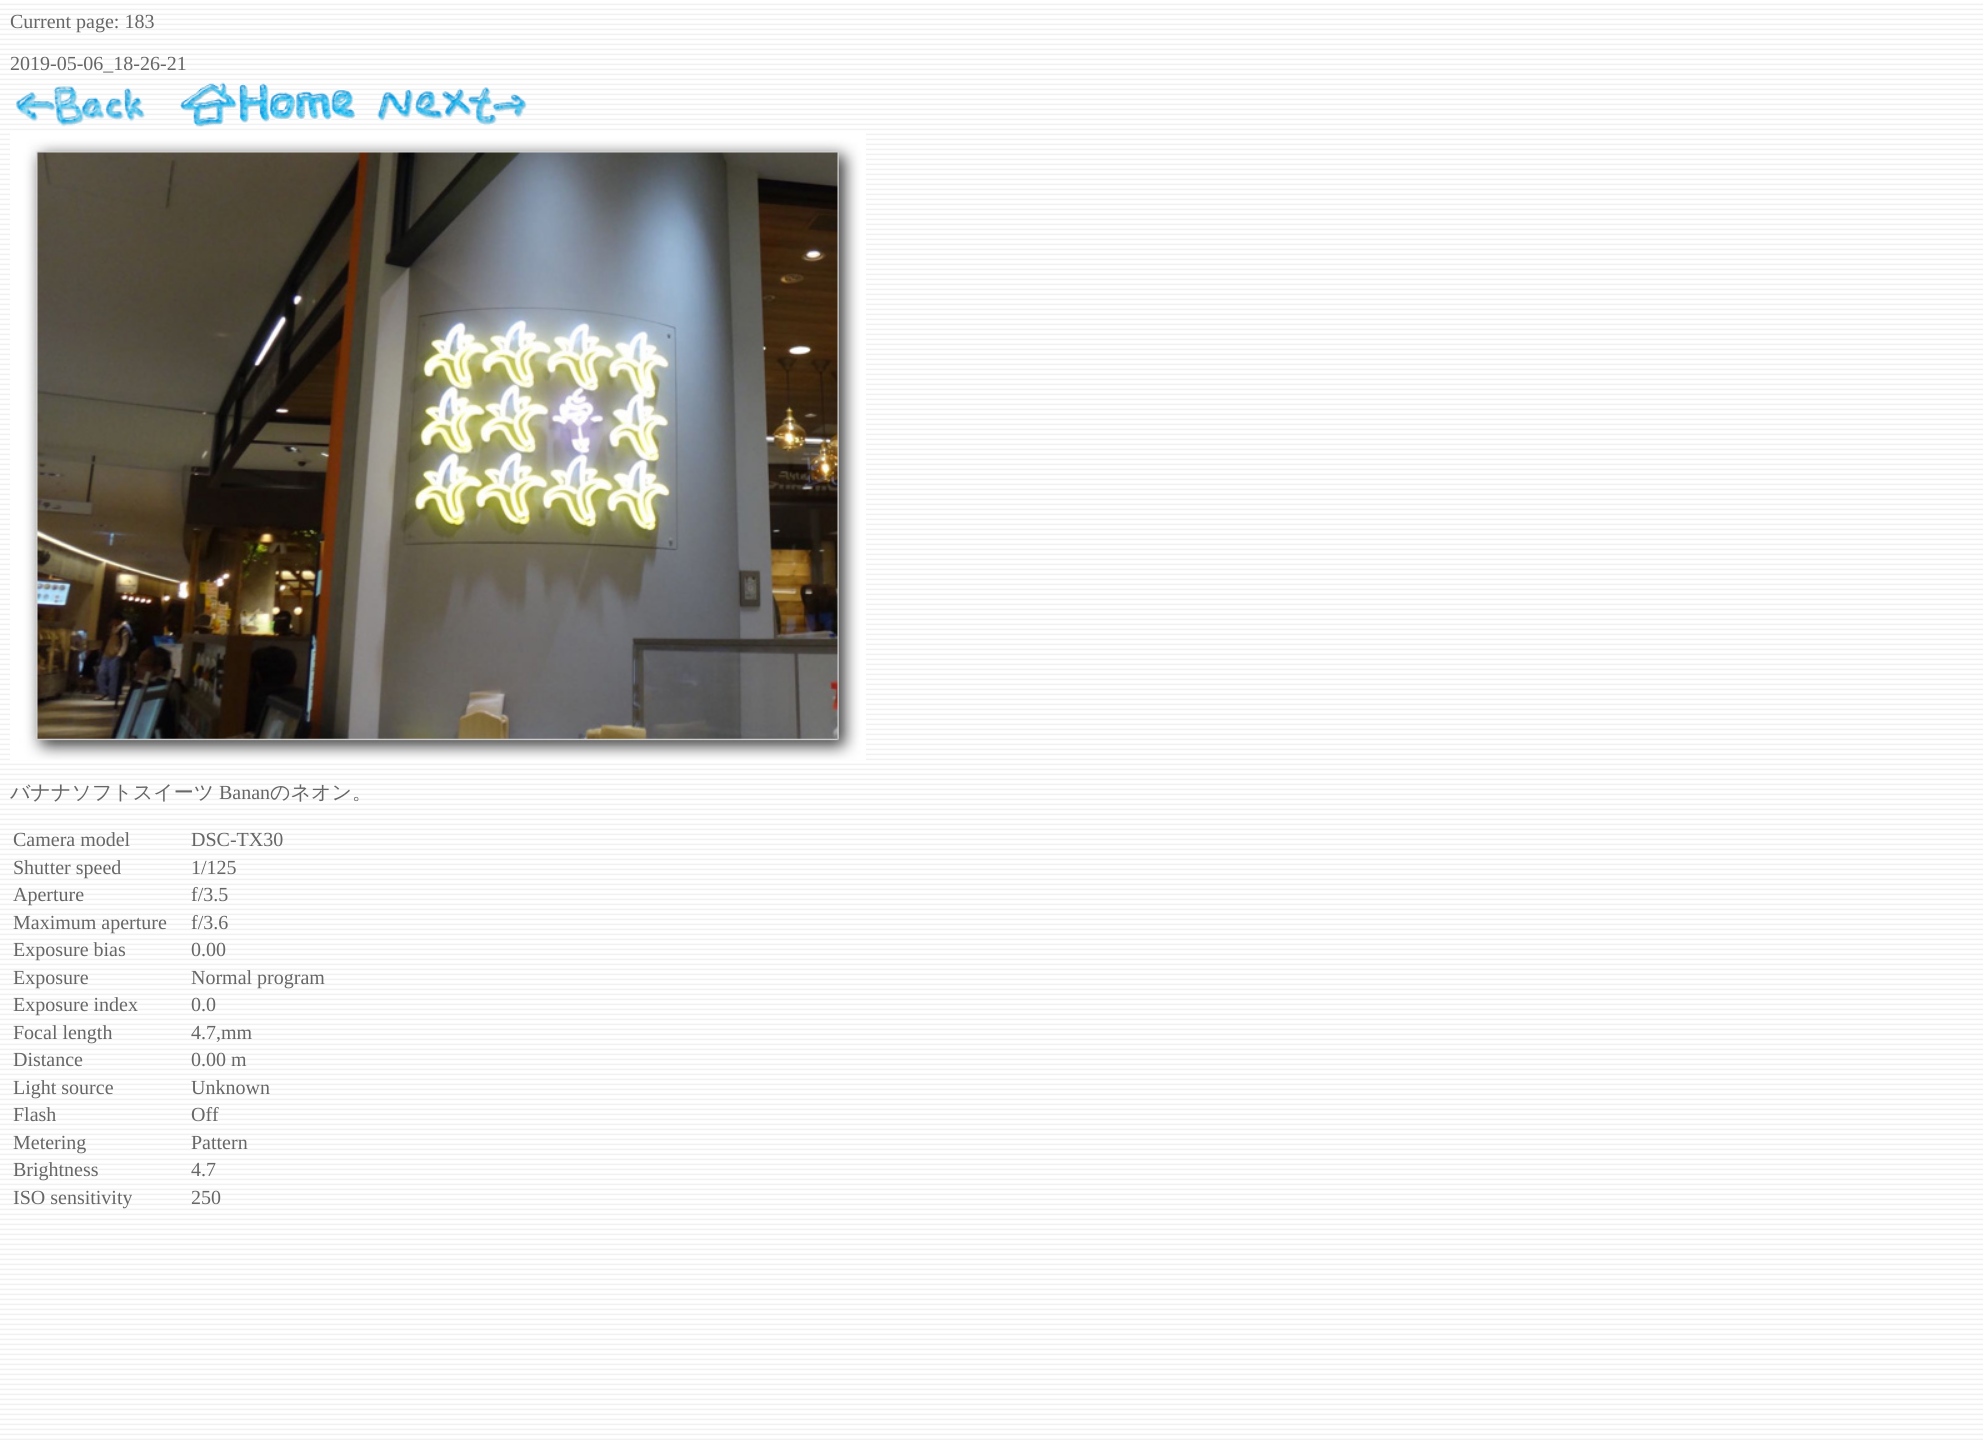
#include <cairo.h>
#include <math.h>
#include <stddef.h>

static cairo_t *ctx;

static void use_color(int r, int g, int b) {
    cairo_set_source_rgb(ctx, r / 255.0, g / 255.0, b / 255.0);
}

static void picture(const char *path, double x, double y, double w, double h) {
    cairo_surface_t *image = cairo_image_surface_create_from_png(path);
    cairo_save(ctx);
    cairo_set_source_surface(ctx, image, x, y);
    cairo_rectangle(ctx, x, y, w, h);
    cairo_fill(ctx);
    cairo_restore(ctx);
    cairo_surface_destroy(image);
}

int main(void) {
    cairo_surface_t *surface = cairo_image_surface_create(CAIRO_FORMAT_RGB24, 1983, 1441);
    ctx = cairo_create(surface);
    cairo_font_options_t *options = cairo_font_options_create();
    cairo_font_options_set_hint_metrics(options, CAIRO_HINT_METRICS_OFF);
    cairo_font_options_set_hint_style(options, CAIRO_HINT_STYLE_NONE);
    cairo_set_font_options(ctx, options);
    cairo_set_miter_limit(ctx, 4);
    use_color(255, 255, 255);
    cairo_paint(ctx);
    picture("img1.png", 0, 3, 1983, 1437);
    cairo_select_font_face(ctx, "Liberation Serif", CAIRO_FONT_SLANT_NORMAL, CAIRO_FONT_WEIGHT_NORMAL);
    cairo_set_font_size(ctx, 20);
    use_color(102, 102, 102);
    cairo_move_to(ctx, 10, 28);
    cairo_show_text(ctx, "Current page: 183");
    cairo_move_to(ctx, 10, 70);
    cairo_show_text(ctx, "2019-05-06_18-26-21");
    picture("img2.png", 16, 86, 130, 41);
    picture("img3.png", 180, 82, 176, 46);
    picture("img4.png", 377, 87, 150, 39);
    picture("img5.png", 10, 133, 856, 627);
    cairo_select_font_face(ctx, "WenQuanYi Zen Hei Medium", CAIRO_FONT_SLANT_NORMAL, CAIRO_FONT_WEIGHT_NORMAL);
    cairo_move_to(ctx, 10, 799);
    cairo_show_text(ctx, "バナナソフトスイーツ");
    cairo_select_font_face(ctx, "Liberation Serif", CAIRO_FONT_SLANT_NORMAL, CAIRO_FONT_WEIGHT_NORMAL);
    cairo_move_to(ctx, 219, 799);
    cairo_show_text(ctx, "Banan");
    cairo_select_font_face(ctx, "WenQuanYi Zen Hei Medium", CAIRO_FONT_SLANT_NORMAL, CAIRO_FONT_WEIGHT_NORMAL);
    cairo_move_to(ctx, 270, 799);
    cairo_show_text(ctx, "のネオン。");
    cairo_select_font_face(ctx, "Liberation Serif", CAIRO_FONT_SLANT_NORMAL, CAIRO_FONT_WEIGHT_NORMAL);
    cairo_move_to(ctx, 13, 846);
    cairo_show_text(ctx, "Camera model");
    cairo_move_to(ctx, 191, 846);
    cairo_show_text(ctx, "DSC-TX30");
    cairo_move_to(ctx, 13, 874);
    cairo_show_text(ctx, "Shutter speed");
    cairo_move_to(ctx, 191, 874);
    cairo_show_text(ctx, "1/125");
    cairo_move_to(ctx, 13, 901);
    cairo_show_text(ctx, "Aperture");
    cairo_move_to(ctx, 191, 901);
    cairo_show_text(ctx, "f/3.5");
    cairo_move_to(ctx, 13, 929);
    cairo_show_text(ctx, "Maximum aperture");
    cairo_move_to(ctx, 191, 929);
    cairo_show_text(ctx, "f/3.6");
    cairo_move_to(ctx, 13, 956);
    cairo_show_text(ctx, "Exposure bias");
    cairo_move_to(ctx, 191, 956);
    cairo_show_text(ctx, "0.00");
    cairo_move_to(ctx, 13, 984);
    cairo_show_text(ctx, "Exposure");
    cairo_move_to(ctx, 191, 984);
    cairo_show_text(ctx, "Normal program");
    cairo_move_to(ctx, 13, 1011);
    cairo_show_text(ctx, "Exposure index");
    cairo_move_to(ctx, 191, 1011);
    cairo_show_text(ctx, "0.0");
    cairo_move_to(ctx, 13, 1039);
    cairo_show_text(ctx, "Focal length");
    cairo_move_to(ctx, 191, 1039);
    cairo_show_text(ctx, "4.7,mm");
    cairo_move_to(ctx, 13, 1066);
    cairo_show_text(ctx, "Distance");
    cairo_move_to(ctx, 191, 1066);
    cairo_show_text(ctx, "0.00 m");
    cairo_move_to(ctx, 13, 1094);
    cairo_show_text(ctx, "Light source");
    cairo_move_to(ctx, 191, 1094);
    cairo_show_text(ctx, "Unknown");
    cairo_move_to(ctx, 13, 1121);
    cairo_show_text(ctx, "Flash");
    cairo_move_to(ctx, 191, 1121);
    cairo_show_text(ctx, "Off");
    cairo_move_to(ctx, 13, 1149);
    cairo_show_text(ctx, "Metering");
    cairo_move_to(ctx, 191, 1149);
    cairo_show_text(ctx, "Pattern");
    cairo_move_to(ctx, 13, 1176);
    cairo_show_text(ctx, "Brightness");
    cairo_move_to(ctx, 191, 1176);
    cairo_show_text(ctx, "4.7");
    cairo_move_to(ctx, 13, 1204);
    cairo_show_text(ctx, "ISO sensitivity");
    cairo_move_to(ctx, 191, 1204);
    cairo_show_text(ctx, "250");
    cairo_surface_write_to_png(surface, "result.png");
    cairo_font_options_destroy(options);
    cairo_destroy(ctx);
    cairo_surface_destroy(surface);
    return 0;
}
